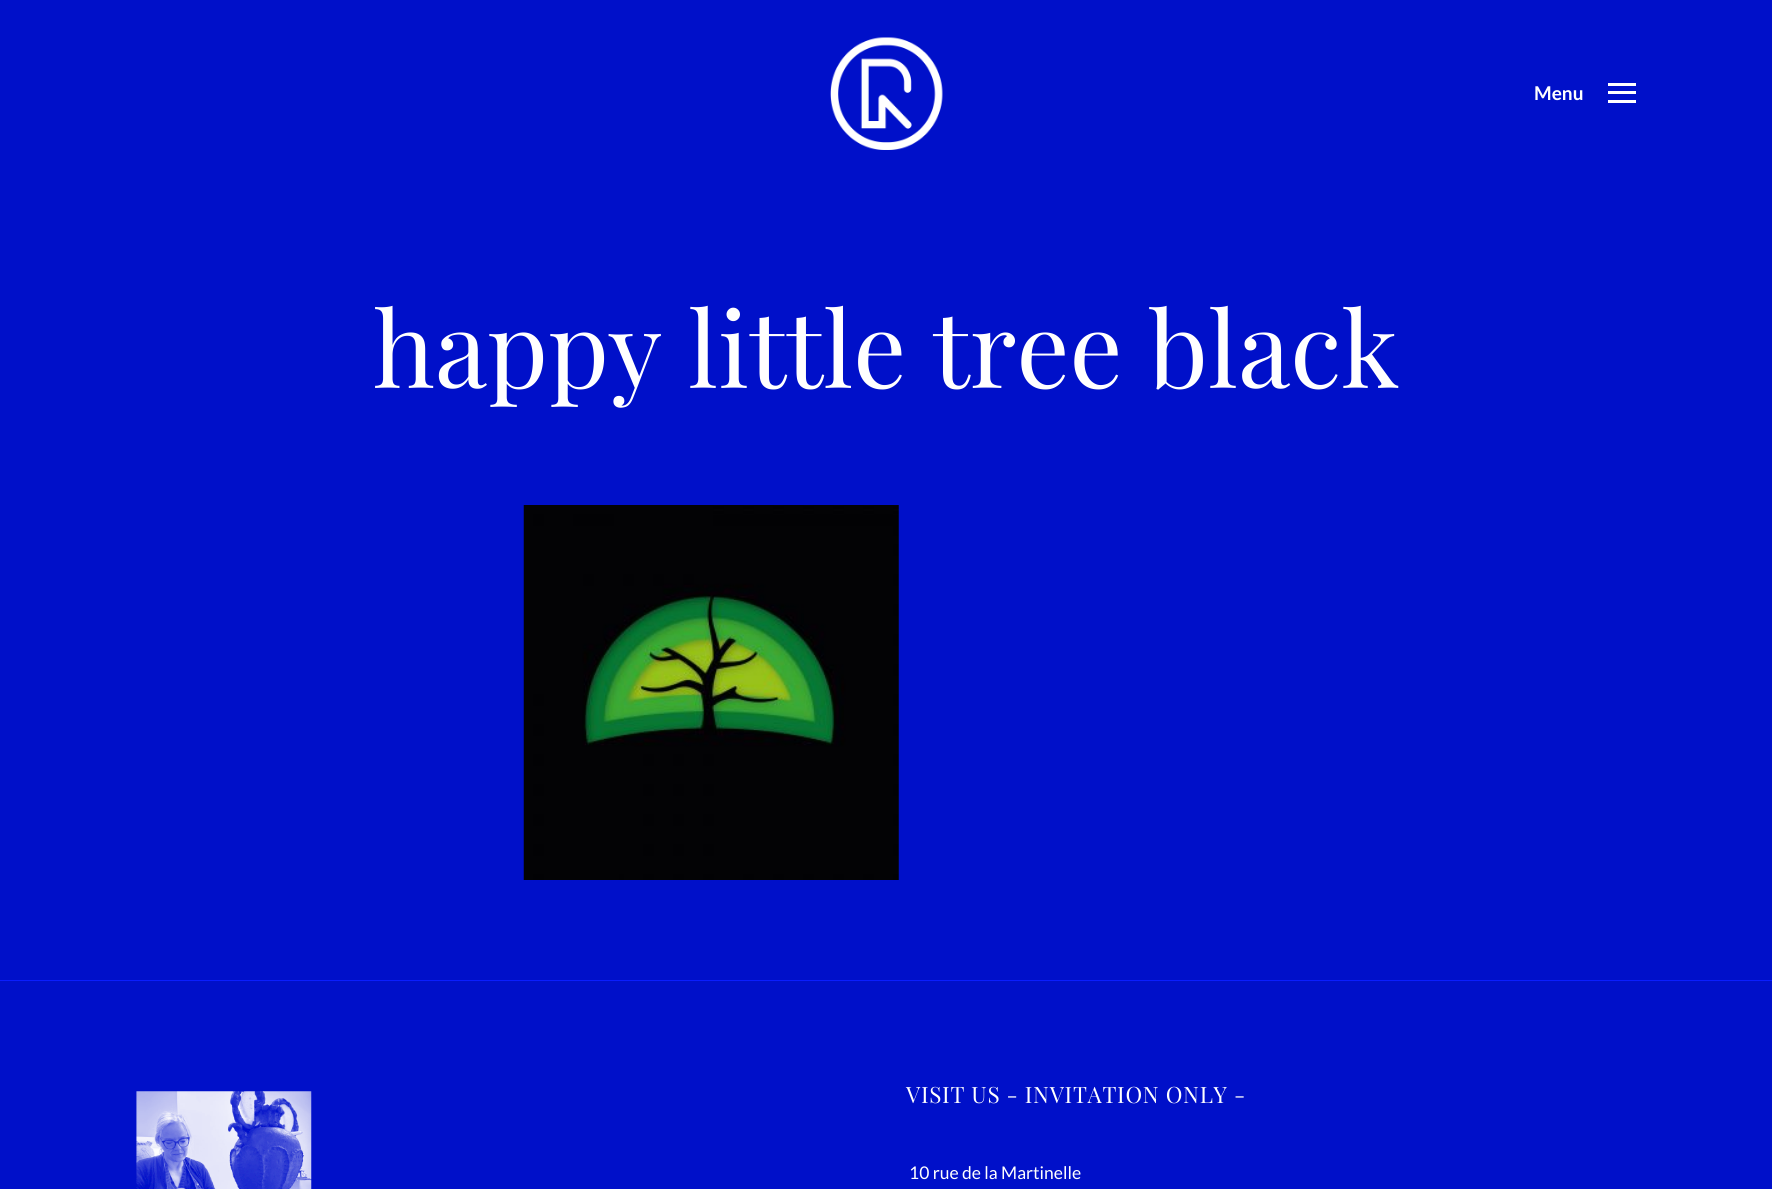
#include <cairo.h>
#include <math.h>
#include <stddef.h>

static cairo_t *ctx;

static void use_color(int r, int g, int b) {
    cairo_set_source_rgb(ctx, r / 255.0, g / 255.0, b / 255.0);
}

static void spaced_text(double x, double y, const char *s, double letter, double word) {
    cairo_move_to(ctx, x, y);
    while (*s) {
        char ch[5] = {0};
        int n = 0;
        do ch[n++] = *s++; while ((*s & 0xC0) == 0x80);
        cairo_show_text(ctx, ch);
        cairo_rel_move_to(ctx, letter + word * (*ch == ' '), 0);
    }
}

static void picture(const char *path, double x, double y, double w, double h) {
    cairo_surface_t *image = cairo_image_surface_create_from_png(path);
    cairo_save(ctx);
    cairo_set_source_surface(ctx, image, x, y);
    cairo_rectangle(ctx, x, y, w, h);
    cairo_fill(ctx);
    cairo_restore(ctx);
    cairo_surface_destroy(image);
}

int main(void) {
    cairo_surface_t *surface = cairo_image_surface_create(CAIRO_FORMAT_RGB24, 1772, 1189);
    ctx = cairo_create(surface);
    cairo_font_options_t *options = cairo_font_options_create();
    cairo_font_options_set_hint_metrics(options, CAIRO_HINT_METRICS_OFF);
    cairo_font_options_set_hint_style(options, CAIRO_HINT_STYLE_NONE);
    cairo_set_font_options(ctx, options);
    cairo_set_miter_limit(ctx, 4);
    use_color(0, 16, 201);
    cairo_paint(ctx);
    picture("img1.png", 830, 37, 113, 113);
    cairo_select_font_face(ctx, "Lato", CAIRO_FONT_SLANT_NORMAL, CAIRO_FONT_WEIGHT_BOLD);
    cairo_set_font_size(ctx, 19);
    use_color(255, 255, 255);
    cairo_move_to(ctx, 1534, 100);
    cairo_show_text(ctx, "Menu");
    cairo_rectangle(ctx, 1608, 83, 28, 3);
    cairo_fill(ctx);
    cairo_rectangle(ctx, 1608, 100, 28, 3);
    cairo_fill(ctx);
    cairo_rectangle(ctx, 1608, 91, 28, 3);
    cairo_fill(ctx);
    cairo_select_font_face(ctx, "Playfair Display", CAIRO_FONT_SLANT_NORMAL, CAIRO_FONT_WEIGHT_NORMAL);
    cairo_set_font_size(ctx, 105);
    cairo_move_to(ctx, 373, 388);
    cairo_show_text(ctx, "happy little tree black");
    picture("img2.png", 523, 505, 376, 375);
    use_color(10, 30, 255);
    cairo_rectangle(ctx, 0, 980, 1772, 1);
    cairo_fill(ctx);
    picture("img3.png", 136, 1091, 176, 98);
    cairo_set_font_size(ctx, 22.5);
    use_color(255, 255, 255);
    spaced_text(906, 1103, "VISIT US - INVITATION ONLY -", 0.7, 0);
    cairo_select_font_face(ctx, "Lato", CAIRO_FONT_SLANT_NORMAL, CAIRO_FONT_WEIGHT_NORMAL);
    cairo_set_font_size(ctx, 17.5);
    cairo_move_to(ctx, 909, 1179);
    cairo_show_text(ctx, "10 rue de la Martinelle");
    cairo_surface_write_to_png(surface, "result.png");
    cairo_font_options_destroy(options);
    cairo_destroy(ctx);
    cairo_surface_destroy(surface);
    return 0;
}
